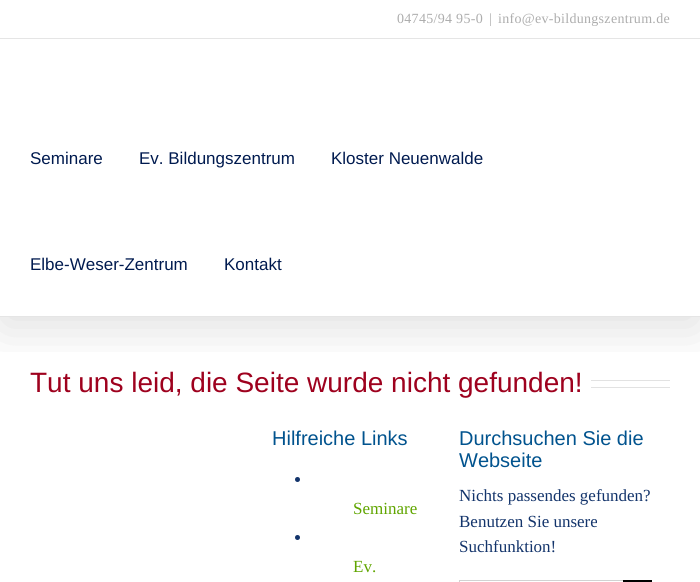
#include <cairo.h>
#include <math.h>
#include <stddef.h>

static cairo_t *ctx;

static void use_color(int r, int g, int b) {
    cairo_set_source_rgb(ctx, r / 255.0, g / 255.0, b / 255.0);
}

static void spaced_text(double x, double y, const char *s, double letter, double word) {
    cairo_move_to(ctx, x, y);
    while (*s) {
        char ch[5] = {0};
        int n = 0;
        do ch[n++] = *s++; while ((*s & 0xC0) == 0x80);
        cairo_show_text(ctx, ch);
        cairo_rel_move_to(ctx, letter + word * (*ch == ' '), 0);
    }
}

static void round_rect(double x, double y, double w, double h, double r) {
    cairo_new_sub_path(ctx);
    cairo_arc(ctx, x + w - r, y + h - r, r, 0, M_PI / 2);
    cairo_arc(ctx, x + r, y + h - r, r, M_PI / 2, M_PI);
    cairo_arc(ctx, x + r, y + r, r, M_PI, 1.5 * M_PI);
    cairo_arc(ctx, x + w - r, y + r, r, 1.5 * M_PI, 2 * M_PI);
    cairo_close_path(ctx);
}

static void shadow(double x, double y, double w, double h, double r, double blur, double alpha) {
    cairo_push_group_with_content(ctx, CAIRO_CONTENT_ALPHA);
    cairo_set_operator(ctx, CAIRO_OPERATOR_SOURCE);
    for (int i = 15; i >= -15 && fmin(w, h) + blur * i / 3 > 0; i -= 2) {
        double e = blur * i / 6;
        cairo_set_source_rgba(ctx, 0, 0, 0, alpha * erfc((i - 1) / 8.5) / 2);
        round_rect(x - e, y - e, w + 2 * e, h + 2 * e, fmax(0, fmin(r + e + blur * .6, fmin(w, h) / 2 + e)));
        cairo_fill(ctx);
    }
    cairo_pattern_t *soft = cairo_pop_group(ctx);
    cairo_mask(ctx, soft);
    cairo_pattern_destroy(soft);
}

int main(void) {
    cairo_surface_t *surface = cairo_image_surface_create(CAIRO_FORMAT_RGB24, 700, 582);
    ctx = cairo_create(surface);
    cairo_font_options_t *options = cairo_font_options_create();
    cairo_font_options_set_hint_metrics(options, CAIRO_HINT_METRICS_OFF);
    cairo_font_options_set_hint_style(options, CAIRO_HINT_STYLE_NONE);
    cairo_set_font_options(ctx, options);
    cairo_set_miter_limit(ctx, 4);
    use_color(255, 255, 255);
    cairo_paint(ctx);
    use_color(226, 226, 226);
    cairo_rectangle(ctx, 591, 380, 79, 1);
    cairo_fill(ctx);
    cairo_rectangle(ctx, 591, 387, 79, 1);
    cairo_fill(ctx);
    cairo_save(ctx);
    cairo_rectangle(ctx, 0, 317, 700, 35);
    cairo_clip(ctx);
    use_color(0, 0, 0);
    shadow(2, 12, 696, 313, 0, 25, 0.14);
    cairo_restore(ctx);
    use_color(229, 229, 229);
    cairo_rectangle(ctx, 0, 38, 700, 1);
    cairo_fill(ctx);
    cairo_select_font_face(ctx, "Liberation Serif", CAIRO_FONT_SLANT_NORMAL, CAIRO_FONT_WEIGHT_NORMAL);
    cairo_set_font_size(ctx, 14);
    use_color(173, 173, 173);
    spaced_text(397, 23, "04745/94 95-0", 0.3, 0);
    spaced_text(489, 23, "|", 0.3, 0);
    spaced_text(498, 23, "info@ev-bildungszentrum.de", 0.3, 0);
    use_color(229, 229, 229);
    cairo_rectangle(ctx, 0, 316, 700, 1);
    cairo_fill(ctx);
    cairo_select_font_face(ctx, "Liberation Sans", CAIRO_FONT_SLANT_NORMAL, CAIRO_FONT_WEIGHT_NORMAL);
    cairo_set_font_size(ctx, 17);
    use_color(0, 26, 79);
    cairo_move_to(ctx, 30, 164);
    cairo_show_text(ctx, "Seminare");
    cairo_move_to(ctx, 139, 164);
    cairo_show_text(ctx, "Ev. Bildungszentrum");
    cairo_move_to(ctx, 331, 164);
    cairo_show_text(ctx, "Kloster Neuenwalde");
    cairo_move_to(ctx, 30, 270);
    cairo_show_text(ctx, "Elbe-Weser-Zentrum");
    cairo_move_to(ctx, 224, 270);
    cairo_show_text(ctx, "Kontakt");
    cairo_set_font_size(ctx, 28);
    use_color(158, 1, 30);
    cairo_move_to(ctx, 30, 392);
    cairo_show_text(ctx, "Tut uns leid, die Seite wurde nicht gefunden!");
    cairo_set_font_size(ctx, 20);
    use_color(1, 83, 142);
    cairo_move_to(ctx, 272, 445);
    cairo_show_text(ctx, "Hilfreiche Links");
    use_color(19, 52, 107);
    cairo_new_path(ctx);
    cairo_arc(ctx, 297.5, 479.5, 2.5, 0, 2 * M_PI);
    cairo_fill(ctx);
    cairo_select_font_face(ctx, "Liberation Serif", CAIRO_FONT_SLANT_NORMAL, CAIRO_FONT_WEIGHT_NORMAL);
    cairo_set_font_size(ctx, 17);
    use_color(96, 165, 0);
    cairo_move_to(ctx, 353, 514);
    cairo_show_text(ctx, "Seminare");
    use_color(19, 52, 107);
    cairo_new_path(ctx);
    cairo_arc(ctx, 297.5, 537.5, 2.5, 0, 2 * M_PI);
    cairo_fill(ctx);
    use_color(96, 165, 0);
    cairo_move_to(ctx, 353, 572);
    cairo_show_text(ctx, "Ev.");
    cairo_select_font_face(ctx, "Liberation Sans", CAIRO_FONT_SLANT_NORMAL, CAIRO_FONT_WEIGHT_NORMAL);
    cairo_set_font_size(ctx, 20);
    use_color(1, 83, 142);
    cairo_move_to(ctx, 459, 445);
    cairo_show_text(ctx, "Durchsuchen Sie die");
    cairo_move_to(ctx, 459, 467);
    cairo_show_text(ctx, "Webseite");
    cairo_select_font_face(ctx, "Liberation Serif", CAIRO_FONT_SLANT_NORMAL, CAIRO_FONT_WEIGHT_NORMAL);
    cairo_set_font_size(ctx, 17);
    use_color(19, 52, 107);
    cairo_move_to(ctx, 459, 501);
    cairo_show_text(ctx, "Nichts passendes gefunden?");
    cairo_move_to(ctx, 459, 527);
    cairo_show_text(ctx, "Benutzen Sie unsere");
    cairo_move_to(ctx, 459, 552);
    cairo_show_text(ctx, "Suchfunktion!");
    use_color(210, 210, 210);
    cairo_rectangle(ctx, 459, 580, 164, 1);
    cairo_fill(ctx);
    cairo_rectangle(ctx, 459, 580, 1, 2);
    cairo_fill(ctx);
    use_color(0, 0, 0);
    cairo_rectangle(ctx, 623, 580, 29, 2);
    cairo_fill(ctx);
    cairo_surface_write_to_png(surface, "result.png");
    cairo_font_options_destroy(options);
    cairo_destroy(ctx);
    cairo_surface_destroy(surface);
    return 0;
}
